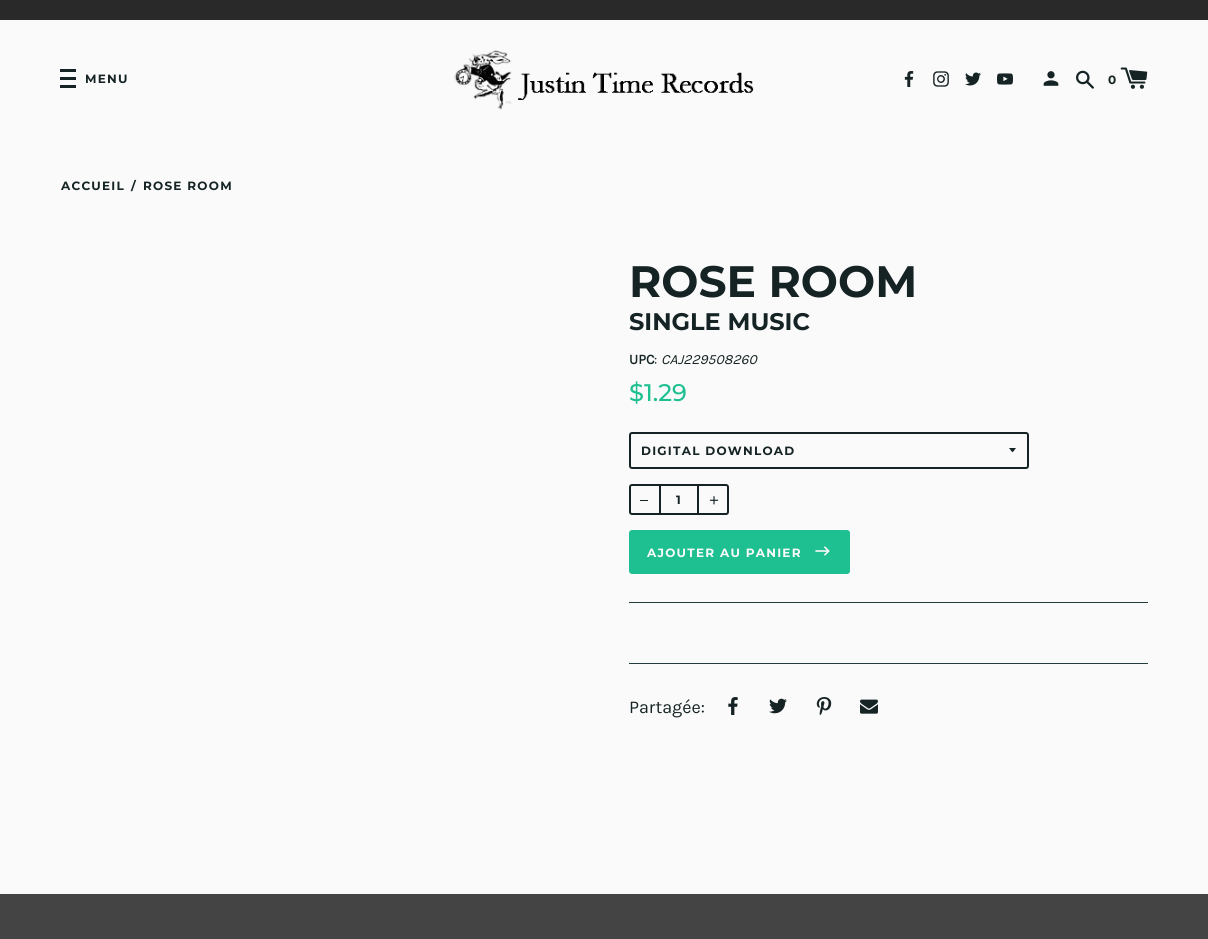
#include <cairo.h>
#include <math.h>
#include <stddef.h>

static cairo_t *ctx;

static void use_color(int r, int g, int b) {
    cairo_set_source_rgb(ctx, r / 255.0, g / 255.0, b / 255.0);
}

static void spaced_text(double x, double y, const char *s, double letter, double word) {
    cairo_move_to(ctx, x, y);
    while (*s) {
        char ch[5] = {0};
        int n = 0;
        do ch[n++] = *s++; while ((*s & 0xC0) == 0x80);
        cairo_show_text(ctx, ch);
        cairo_rel_move_to(ctx, letter + word * (*ch == ' '), 0);
    }
}

static void round_rect(double x, double y, double w, double h, double r) {
    cairo_new_sub_path(ctx);
    cairo_arc(ctx, x + w - r, y + h - r, r, 0, M_PI / 2);
    cairo_arc(ctx, x + r, y + h - r, r, M_PI / 2, M_PI);
    cairo_arc(ctx, x + r, y + r, r, M_PI, 1.5 * M_PI);
    cairo_arc(ctx, x + w - r, y + r, r, 1.5 * M_PI, 2 * M_PI);
    cairo_close_path(ctx);
}

static void picture(const char *path, double x, double y, double w, double h) {
    cairo_surface_t *image = cairo_image_surface_create_from_png(path);
    cairo_save(ctx);
    cairo_set_source_surface(ctx, image, x, y);
    cairo_rectangle(ctx, x, y, w, h);
    cairo_fill(ctx);
    cairo_restore(ctx);
    cairo_surface_destroy(image);
}

int main(void) {
    cairo_surface_t *surface = cairo_image_surface_create(CAIRO_FORMAT_RGB24, 1208, 939);
    ctx = cairo_create(surface);
    cairo_font_options_t *options = cairo_font_options_create();
    cairo_font_options_set_hint_metrics(options, CAIRO_HINT_METRICS_OFF);
    cairo_font_options_set_hint_style(options, CAIRO_HINT_STYLE_NONE);
    cairo_set_font_options(ctx, options);
    cairo_set_miter_limit(ctx, 4);
    use_color(250, 250, 250);
    cairo_paint(ctx);
    use_color(41, 41, 41);
    cairo_rectangle(ctx, 0, 0, 1208, 20);
    cairo_fill(ctx);
    use_color(21, 35, 36);
    cairo_rectangle(ctx, 60, 69, 16, 3);
    cairo_fill(ctx);
    cairo_rectangle(ctx, 60, 77, 16, 3);
    cairo_fill(ctx);
    cairo_rectangle(ctx, 60, 85, 16, 3);
    cairo_fill(ctx);
    cairo_select_font_face(ctx, "Montserrat", CAIRO_FONT_SLANT_NORMAL, CAIRO_FONT_WEIGHT_BOLD);
    cairo_set_font_size(ctx, 12);
    spaced_text(85, 83, "MENU", 1.25, 0);
    picture("img1.png", 454, 50, 300, 60);
    picture("img2.png", 904, 71, 10, 16);
    picture("img3.png", 933, 71, 16, 16);
    picture("img4.png", 965, 72, 16, 14);
    picture("img5.png", 997, 73, 16, 12);
    picture("img6.png", 1043, 71, 16, 15);
    picture("img7.png", 1076, 70, 18, 19);
    cairo_move_to(ctx, 1108, 84);
    cairo_show_text(ctx, "0");
    picture("img8.png", 1120, 67, 28, 22);
    spaced_text(61, 190, "ACCUEIL", 1.25, 0);
    spaced_text(131, 190, "/", 1.25, 0);
    spaced_text(143, 190, "ROSE ROOM", 1.25, 0);
    cairo_set_font_size(ctx, 44);
    cairo_move_to(ctx, 629, 297);
    cairo_show_text(ctx, "ROSE ROOM");
    cairo_set_font_size(ctx, 24);
    cairo_move_to(ctx, 629, 330);
    cairo_show_text(ctx, "SINGLE MUSIC");
    cairo_select_font_face(ctx, "Karla", CAIRO_FONT_SLANT_NORMAL, CAIRO_FONT_WEIGHT_BOLD);
    cairo_set_font_size(ctx, 14);
    cairo_move_to(ctx, 629, 364);
    cairo_show_text(ctx, "UPC");
    cairo_select_font_face(ctx, "Karla", CAIRO_FONT_SLANT_NORMAL, CAIRO_FONT_WEIGHT_NORMAL);
    cairo_move_to(ctx, 654, 364);
    cairo_show_text(ctx, ":");
    cairo_select_font_face(ctx, "Karla", CAIRO_FONT_SLANT_ITALIC, CAIRO_FONT_WEIGHT_NORMAL);
    cairo_move_to(ctx, 661, 364);
    cairo_show_text(ctx, "CAJ229508260");
    cairo_select_font_face(ctx, "Montserrat Medium", CAIRO_FONT_SLANT_NORMAL, CAIRO_FONT_WEIGHT_NORMAL);
    cairo_set_font_size(ctx, 24);
    use_color(30, 191, 144);
    cairo_move_to(ctx, 629, 401);
    cairo_show_text(ctx, "$1.29");
    use_color(21, 35, 36);
    cairo_new_path(ctx);
    cairo_move_to(ctx, 1009, 448);
    cairo_curve_to(ctx, 1013.5, 453.5, 1011.5, 453.5, 1016, 448);
    cairo_close_path(ctx);
    cairo_fill(ctx);
    round_rect(630, 433, 398, 35, 2);
    cairo_stroke(ctx);
    cairo_select_font_face(ctx, "Montserrat", CAIRO_FONT_SLANT_NORMAL, CAIRO_FONT_WEIGHT_BOLD);
    cairo_set_font_size(ctx, 12);
    spaced_text(641, 455, "DIGITAL DOWNLOAD", 1.25, 0);
    round_rect(630, 485, 98, 29, 2);
    cairo_stroke(ctx);
    cairo_rectangle(ctx, 659, 484, 2, 31);
    cairo_fill(ctx);
    cairo_rectangle(ctx, 640, 500, 8, 1);
    cairo_fill(ctx);
    spaced_text(676, 504, "1", 1.25, 0);
    cairo_rectangle(ctx, 697, 484, 2, 31);
    cairo_fill(ctx);
    picture("img9.png", 709, 496, 10, 9);
    use_color(30, 191, 144);
    round_rect(630, 531, 219, 42, 2);
    cairo_fill_preserve(ctx);
    cairo_stroke(ctx);
    use_color(250, 250, 250);
    spaced_text(647, 557, "AJOUTER AU PANIER", 1.25, 0);
    picture("img10.png", 815, 546, 15, 10);
    use_color(36, 60, 62);
    cairo_rectangle(ctx, 629, 602, 519, 1);
    cairo_fill(ctx);
    cairo_rectangle(ctx, 629, 663, 519, 1);
    cairo_fill(ctx);
    cairo_select_font_face(ctx, "Karla", CAIRO_FONT_SLANT_NORMAL, CAIRO_FONT_WEIGHT_NORMAL);
    cairo_set_font_size(ctx, 18);
    use_color(21, 35, 36);
    cairo_move_to(ctx, 629, 713);
    cairo_show_text(ctx, "Partagée:");
    picture("img11.png", 728, 697, 10, 18);
    picture("img12.png", 769, 698, 18, 16);
    picture("img13.png", 816, 697, 16, 18);
    picture("img14.png", 860, 699, 18, 15);
    use_color(68, 68, 68);
    cairo_rectangle(ctx, 0, 894, 1208, 45);
    cairo_fill(ctx);
    cairo_surface_write_to_png(surface, "result.png");
    cairo_font_options_destroy(options);
    cairo_destroy(ctx);
    cairo_surface_destroy(surface);
    return 0;
}
